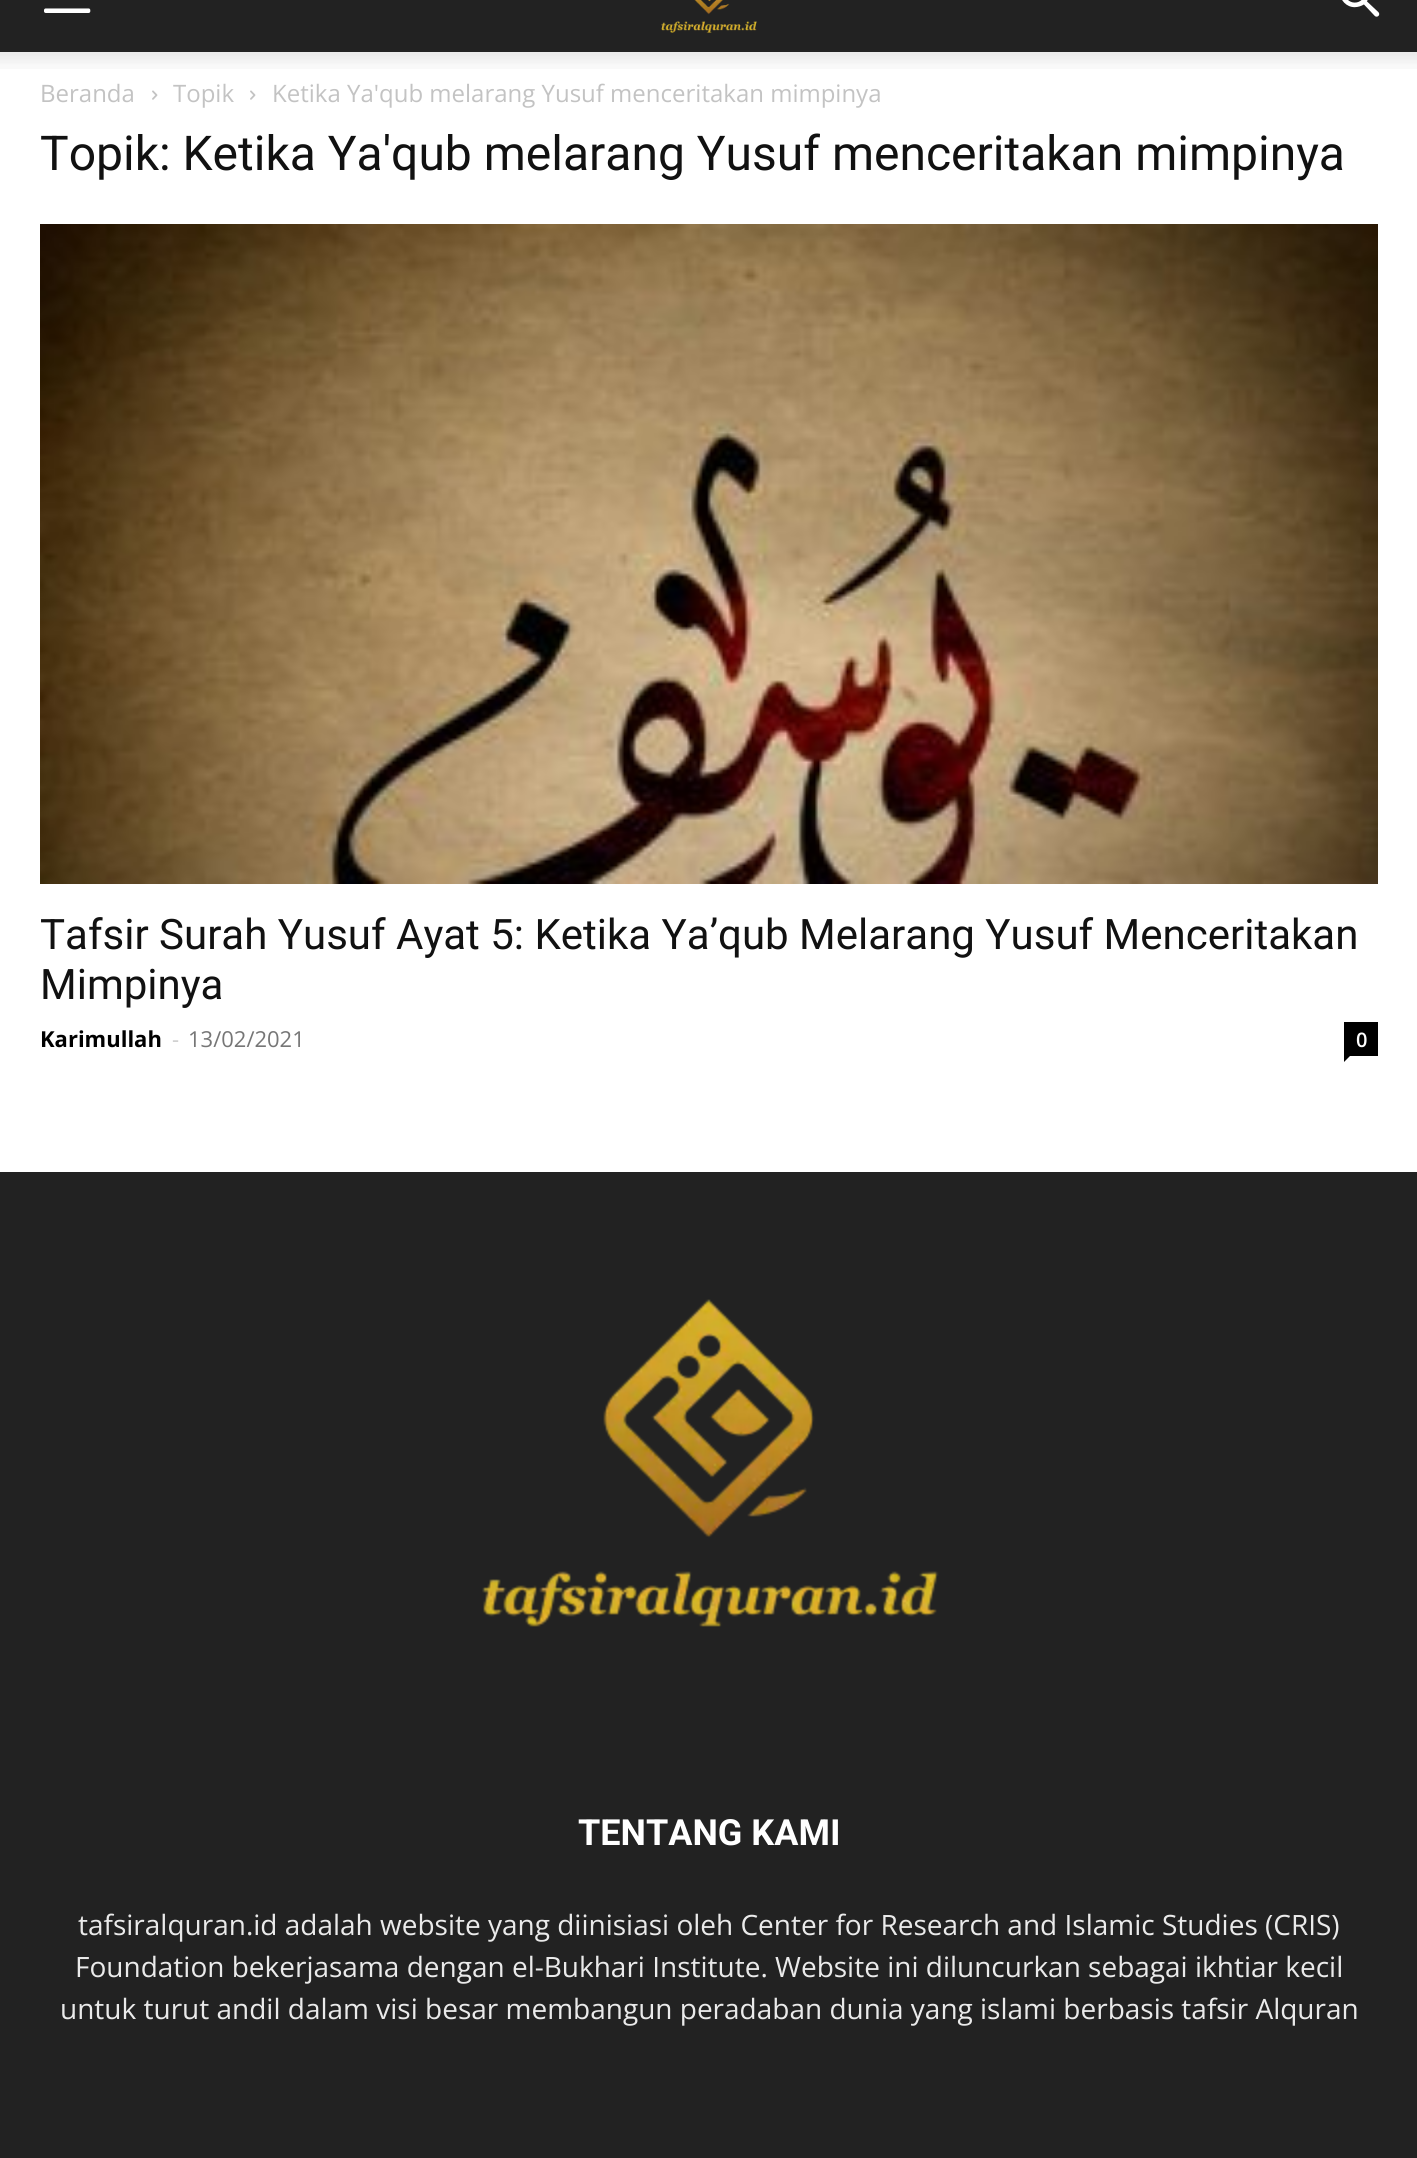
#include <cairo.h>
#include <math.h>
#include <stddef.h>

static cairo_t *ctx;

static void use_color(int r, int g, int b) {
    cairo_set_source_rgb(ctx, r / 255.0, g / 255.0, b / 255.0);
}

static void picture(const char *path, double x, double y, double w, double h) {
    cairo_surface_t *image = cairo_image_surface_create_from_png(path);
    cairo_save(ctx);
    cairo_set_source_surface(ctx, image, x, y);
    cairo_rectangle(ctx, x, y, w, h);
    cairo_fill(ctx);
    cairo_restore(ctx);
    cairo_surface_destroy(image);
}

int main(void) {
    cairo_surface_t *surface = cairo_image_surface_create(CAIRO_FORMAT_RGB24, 1417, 2158);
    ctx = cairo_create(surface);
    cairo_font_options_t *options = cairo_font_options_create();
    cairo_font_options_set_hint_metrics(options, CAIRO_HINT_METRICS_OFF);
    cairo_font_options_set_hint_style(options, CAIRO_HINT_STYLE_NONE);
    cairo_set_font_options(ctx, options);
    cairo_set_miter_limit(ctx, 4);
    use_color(255, 255, 255);
    cairo_paint(ctx);
    use_color(34, 34, 34);
    cairo_rectangle(ctx, 0, 0, 1417, 52);
    cairo_fill(ctx);
    picture("img1.png", 44, 8, 47, 5);
    picture("img2.png", 661, 0, 96, 33);
    picture("img3.png", 1342, 0, 38, 17);
    picture("img4.png", 0, 52, 1417, 17);
    cairo_select_font_face(ctx, "Open Sans", CAIRO_FONT_SLANT_NORMAL, CAIRO_FONT_WEIGHT_NORMAL);
    cairo_set_font_size(ctx, 24);
    use_color(195, 195, 195);
    cairo_move_to(ctx, 40, 102);
    cairo_show_text(ctx, "Beranda");
    picture("img5.png", 152, 90, 6, 10);
    cairo_move_to(ctx, 173, 102);
    cairo_show_text(ctx, "Topik");
    picture("img5.png", 250, 90, 6, 10);
    cairo_move_to(ctx, 272, 102);
    cairo_show_text(ctx, "Ketika Ya'qub melarang Yusuf menceritakan mimpinya");
    cairo_select_font_face(ctx, "Roboto", CAIRO_FONT_SLANT_NORMAL, CAIRO_FONT_WEIGHT_NORMAL);
    cairo_set_font_size(ctx, 48);
    use_color(17, 17, 17);
    cairo_move_to(ctx, 40, 170);
    cairo_show_text(ctx, "Topik: Ketika Ya'qub melarang Yusuf menceritakan mimpinya");
    picture("img6.png", 40, 224, 1338, 660);
    cairo_set_font_size(ctx, 42);
    cairo_move_to(ctx, 40, 949);
    cairo_show_text(ctx, "Tafsir Surah Yusuf Ayat 5: Ketika Ya’qub Melarang Yusuf Menceritakan");
    cairo_move_to(ctx, 40, 999);
    cairo_show_text(ctx, "Mimpinya");
    cairo_select_font_face(ctx, "Open Sans", CAIRO_FONT_SLANT_NORMAL, CAIRO_FONT_WEIGHT_BOLD);
    cairo_set_font_size(ctx, 22);
    use_color(0, 0, 0);
    cairo_move_to(ctx, 40, 1047);
    cairo_show_text(ctx, "Karimullah");
    cairo_select_font_face(ctx, "Open Sans", CAIRO_FONT_SLANT_NORMAL, CAIRO_FONT_WEIGHT_NORMAL);
    use_color(204, 204, 204);
    cairo_move_to(ctx, 172, 1047);
    cairo_show_text(ctx, "-");
    use_color(118, 118, 118);
    cairo_move_to(ctx, 188, 1047);
    cairo_show_text(ctx, "13/02/2021");
    use_color(0, 0, 0);
    cairo_rectangle(ctx, 1344, 1022, 34, 34);
    cairo_fill(ctx);
    cairo_select_font_face(ctx, "Open Sans SemiBold", CAIRO_FONT_SLANT_NORMAL, CAIRO_FONT_WEIGHT_NORMAL);
    cairo_set_font_size(ctx, 20);
    use_color(255, 255, 255);
    cairo_move_to(ctx, 1356, 1047);
    cairo_show_text(ctx, "0");
    use_color(0, 0, 0);
    cairo_new_path(ctx);
    cairo_move_to(ctx, 1344, 1056);
    cairo_line_to(ctx, 1350, 1056);
    cairo_line_to(ctx, 1344, 1062);
    cairo_close_path(ctx);
    cairo_fill(ctx);
    use_color(34, 34, 34);
    cairo_rectangle(ctx, 0, 1172, 1417, 986);
    cairo_fill(ctx);
    picture("img7.png", 482, 1299, 457, 328);
    cairo_select_font_face(ctx, "Roboto", CAIRO_FONT_SLANT_NORMAL, CAIRO_FONT_WEIGHT_BOLD);
    cairo_set_font_size(ctx, 36);
    use_color(255, 255, 255);
    cairo_move_to(ctx, 578, 1845);
    cairo_show_text(ctx, "TENTANG KAMI");
    cairo_select_font_face(ctx, "Open Sans", CAIRO_FONT_SLANT_NORMAL, CAIRO_FONT_WEIGHT_NORMAL);
    cairo_set_font_size(ctx, 28);
    use_color(234, 234, 234);
    cairo_move_to(ctx, 78, 1935);
    cairo_show_text(ctx, "tafsiralquran.id adalah website yang diinisiasi oleh Center for Research and Islamic Studies (CRIS)");
    cairo_move_to(ctx, 75, 1977);
    cairo_show_text(ctx, "Foundation bekerjasama dengan el-Bukhari Institute. Website ini diluncurkan sebagai ikhtiar kecil");
    cairo_move_to(ctx, 60, 2019);
    cairo_show_text(ctx, "untuk turut andil dalam visi besar membangun peradaban dunia yang islami berbasis tafsir Alquran");
    cairo_surface_write_to_png(surface, "result.png");
    cairo_font_options_destroy(options);
    cairo_destroy(ctx);
    cairo_surface_destroy(surface);
    return 0;
}
